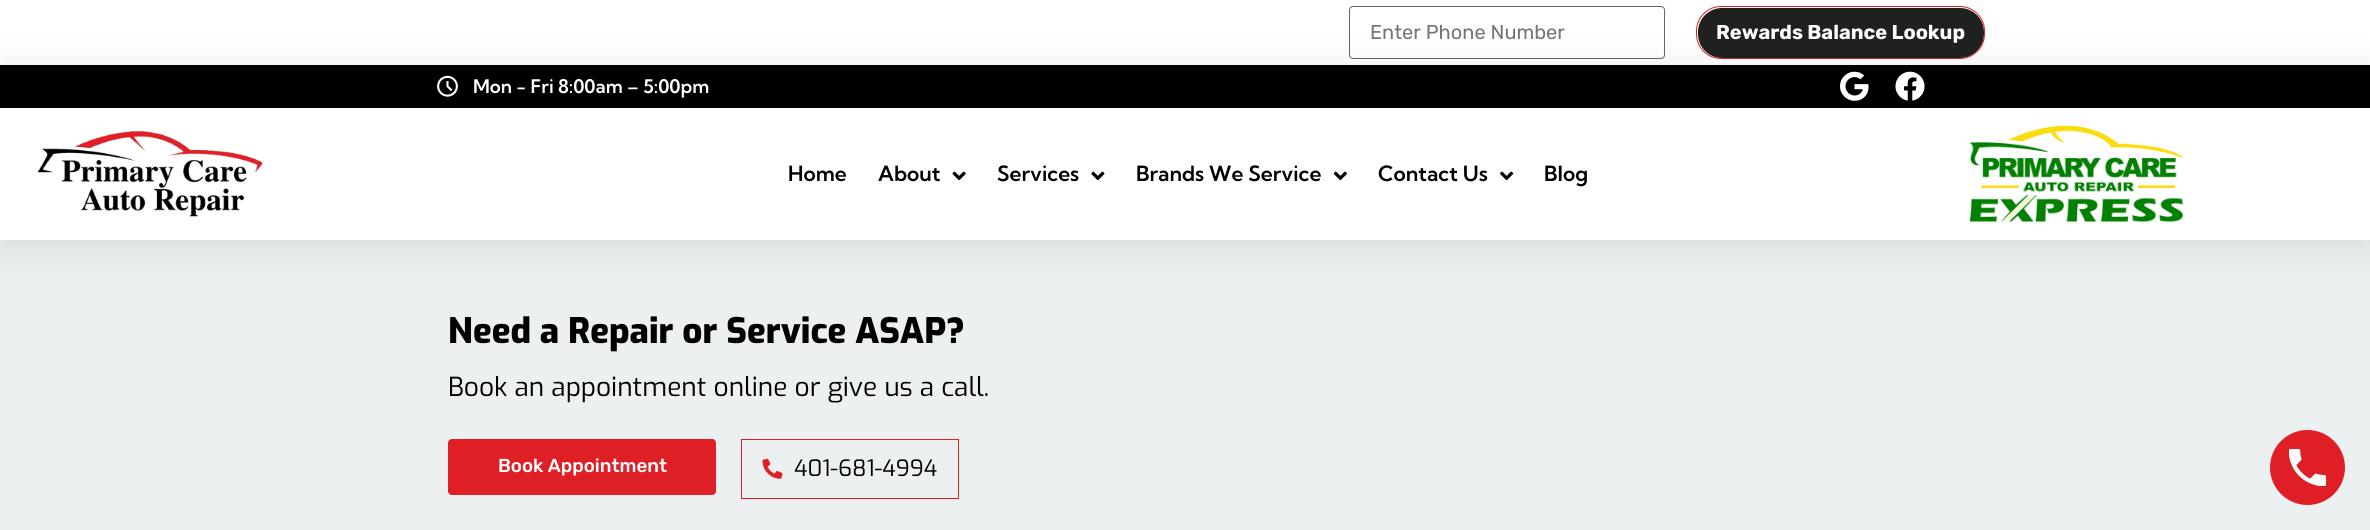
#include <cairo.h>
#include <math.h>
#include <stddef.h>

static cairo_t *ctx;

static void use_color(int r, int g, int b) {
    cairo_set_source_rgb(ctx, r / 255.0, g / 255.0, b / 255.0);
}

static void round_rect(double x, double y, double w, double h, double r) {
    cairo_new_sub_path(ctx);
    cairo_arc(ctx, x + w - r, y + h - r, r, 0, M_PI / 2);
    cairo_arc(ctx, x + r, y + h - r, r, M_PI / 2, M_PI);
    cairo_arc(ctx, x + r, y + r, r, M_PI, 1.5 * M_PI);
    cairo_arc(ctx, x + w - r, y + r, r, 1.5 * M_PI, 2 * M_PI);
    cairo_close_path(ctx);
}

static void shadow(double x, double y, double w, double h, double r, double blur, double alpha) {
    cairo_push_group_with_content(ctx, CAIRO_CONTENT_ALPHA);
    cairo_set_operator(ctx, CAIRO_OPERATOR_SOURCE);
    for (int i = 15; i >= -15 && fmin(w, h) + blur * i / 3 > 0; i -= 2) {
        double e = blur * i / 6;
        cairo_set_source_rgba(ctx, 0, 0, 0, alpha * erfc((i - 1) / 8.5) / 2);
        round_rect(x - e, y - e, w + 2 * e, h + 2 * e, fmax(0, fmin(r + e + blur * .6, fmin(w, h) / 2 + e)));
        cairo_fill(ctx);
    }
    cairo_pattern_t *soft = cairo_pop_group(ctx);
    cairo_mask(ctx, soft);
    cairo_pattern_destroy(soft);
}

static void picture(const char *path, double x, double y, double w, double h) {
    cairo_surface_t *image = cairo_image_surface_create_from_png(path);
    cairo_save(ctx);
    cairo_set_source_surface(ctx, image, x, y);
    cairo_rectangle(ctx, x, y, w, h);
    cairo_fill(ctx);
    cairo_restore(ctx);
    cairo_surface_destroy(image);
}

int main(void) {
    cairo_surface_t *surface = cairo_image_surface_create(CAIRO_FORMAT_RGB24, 2370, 530);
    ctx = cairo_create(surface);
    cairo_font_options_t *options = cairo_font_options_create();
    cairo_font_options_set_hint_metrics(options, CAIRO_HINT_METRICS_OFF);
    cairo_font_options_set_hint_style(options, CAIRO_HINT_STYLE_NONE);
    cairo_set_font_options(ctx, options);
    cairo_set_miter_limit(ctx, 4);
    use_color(255, 255, 255);
    cairo_paint(ctx);
    round_rect(1349.5, 6.5, 315, 52, 3.5);
    use_color(102, 102, 102);
    cairo_set_line_width(ctx, 1);
    cairo_stroke(ctx);
    cairo_select_font_face(ctx, "Rubik", CAIRO_FONT_SLANT_NORMAL, CAIRO_FONT_WEIGHT_NORMAL);
    cairo_set_font_size(ctx, 20);
    use_color(117, 117, 117);
    cairo_move_to(ctx, 1370, 39);
    cairo_show_text(ctx, "Enter Phone Number");
    use_color(31, 33, 32);
    round_rect(1698, 8, 286, 50, 24);
    cairo_fill(ctx);
    round_rect(1696.5, 6.5, 288, 52, 24.5);
    use_color(223, 31, 38);
    cairo_stroke(ctx);
    cairo_select_font_face(ctx, "Rubik", CAIRO_FONT_SLANT_NORMAL, CAIRO_FONT_WEIGHT_BOLD);
    use_color(255, 255, 255);
    cairo_move_to(ctx, 1716, 39);
    cairo_show_text(ctx, "Rewards Balance Lookup");
    use_color(236, 240, 241);
    cairo_rectangle(ctx, 0, 240, 2370, 290);
    cairo_fill(ctx);
    cairo_save(ctx);
    cairo_set_fill_rule(ctx, CAIRO_FILL_RULE_EVEN_ODD);
    cairo_new_path(ctx);
    cairo_move_to(ctx, 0, 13);
    cairo_line_to(ctx, 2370, 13);
    cairo_line_to(ctx, 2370, 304);
    cairo_line_to(ctx, 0, 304);
    cairo_close_path(ctx);
    cairo_move_to(ctx, 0, 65);
    cairo_line_to(ctx, 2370, 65);
    cairo_line_to(ctx, 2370, 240);
    cairo_line_to(ctx, 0, 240);
    cairo_close_path(ctx);
    cairo_clip(ctx);
    use_color(0, 0, 0);
    shadow(0, 71, 2370, 175, 0, 19, 0.1);
    cairo_restore(ctx);
    use_color(0, 0, 0);
    cairo_rectangle(ctx, 0, 65, 2370, 43);
    cairo_fill(ctx);
    picture("img1.png", 437, 75, 21, 22);
    cairo_select_font_face(ctx, "Kumbh Sans SemiBold", CAIRO_FONT_SLANT_NORMAL, CAIRO_FONT_WEIGHT_NORMAL);
    cairo_set_font_size(ctx, 18.75);
    use_color(255, 255, 255);
    cairo_move_to(ctx, 473, 93);
    cairo_show_text(ctx, "Mon - Fri 8:00am – 5:00pm");
    picture("img2.png", 1840, 71, 29, 30);
    picture("img3.png", 1895, 71, 30, 30);
    picture("img4.png", 37, 131, 226, 86);
    cairo_set_font_size(ctx, 21);
    use_color(0, 0, 0);
    cairo_move_to(ctx, 788, 181);
    cairo_show_text(ctx, "Home");
    cairo_move_to(ctx, 878, 181);
    cairo_show_text(ctx, "About");
    picture("img5.png", 952, 171, 14, 10);
    cairo_move_to(ctx, 997, 181);
    cairo_show_text(ctx, "Services");
    picture("img6.png", 1091, 171, 14, 10);
    cairo_move_to(ctx, 1136, 181);
    cairo_show_text(ctx, "Brands We Service");
    picture("img7.png", 1333, 171, 14, 10);
    cairo_move_to(ctx, 1378, 181);
    cairo_show_text(ctx, "Contact Us");
    picture("img8.png", 1500, 171, 14, 10);
    cairo_move_to(ctx, 1544, 181);
    cairo_show_text(ctx, "Blog");
    picture("img9.png", 1969, 125, 215, 98);
    cairo_select_font_face(ctx, "Exo ExtraBold", CAIRO_FONT_SLANT_NORMAL, CAIRO_FONT_WEIGHT_NORMAL);
    cairo_set_font_size(ctx, 35);
    cairo_move_to(ctx, 448, 343);
    cairo_show_text(ctx, "Need a Repair or Service ASAP?");
    cairo_select_font_face(ctx, "Exo", CAIRO_FONT_SLANT_NORMAL, CAIRO_FONT_WEIGHT_NORMAL);
    cairo_set_font_size(ctx, 26.25);
    cairo_move_to(ctx, 448, 396);
    cairo_show_text(ctx, "Book an appointment online or give us a call.");
    use_color(223, 31, 38);
    round_rect(448, 439, 268, 56, 4);
    cairo_fill(ctx);
    cairo_select_font_face(ctx, "Rubik Medium", CAIRO_FONT_SLANT_NORMAL, CAIRO_FONT_WEIGHT_NORMAL);
    cairo_set_font_size(ctx, 18.75);
    use_color(255, 255, 255);
    cairo_move_to(ctx, 498, 472);
    cairo_show_text(ctx, "Book Appointment");
    cairo_rectangle(ctx, 741.5, 439.5, 217, 59);
    use_color(223, 31, 38);
    cairo_stroke(ctx);
    picture("img10.png", 762, 458, 21, 21);
    cairo_select_font_face(ctx, "Exo", CAIRO_FONT_SLANT_NORMAL, CAIRO_FONT_WEIGHT_NORMAL);
    cairo_set_font_size(ctx, 22.5);
    use_color(0, 0, 0);
    cairo_move_to(ctx, 794, 476);
    cairo_show_text(ctx, "401-681-4994");
    use_color(223, 31, 37);
    cairo_new_path(ctx);
    cairo_arc(ctx, 2307.5, 467.5, 37.5, 0, 2 * M_PI);
    cairo_fill(ctx);
    picture("img11.png", 2289, 449, 37, 37);
    cairo_surface_write_to_png(surface, "result.png");
    cairo_font_options_destroy(options);
    cairo_destroy(ctx);
    cairo_surface_destroy(surface);
    return 0;
}
